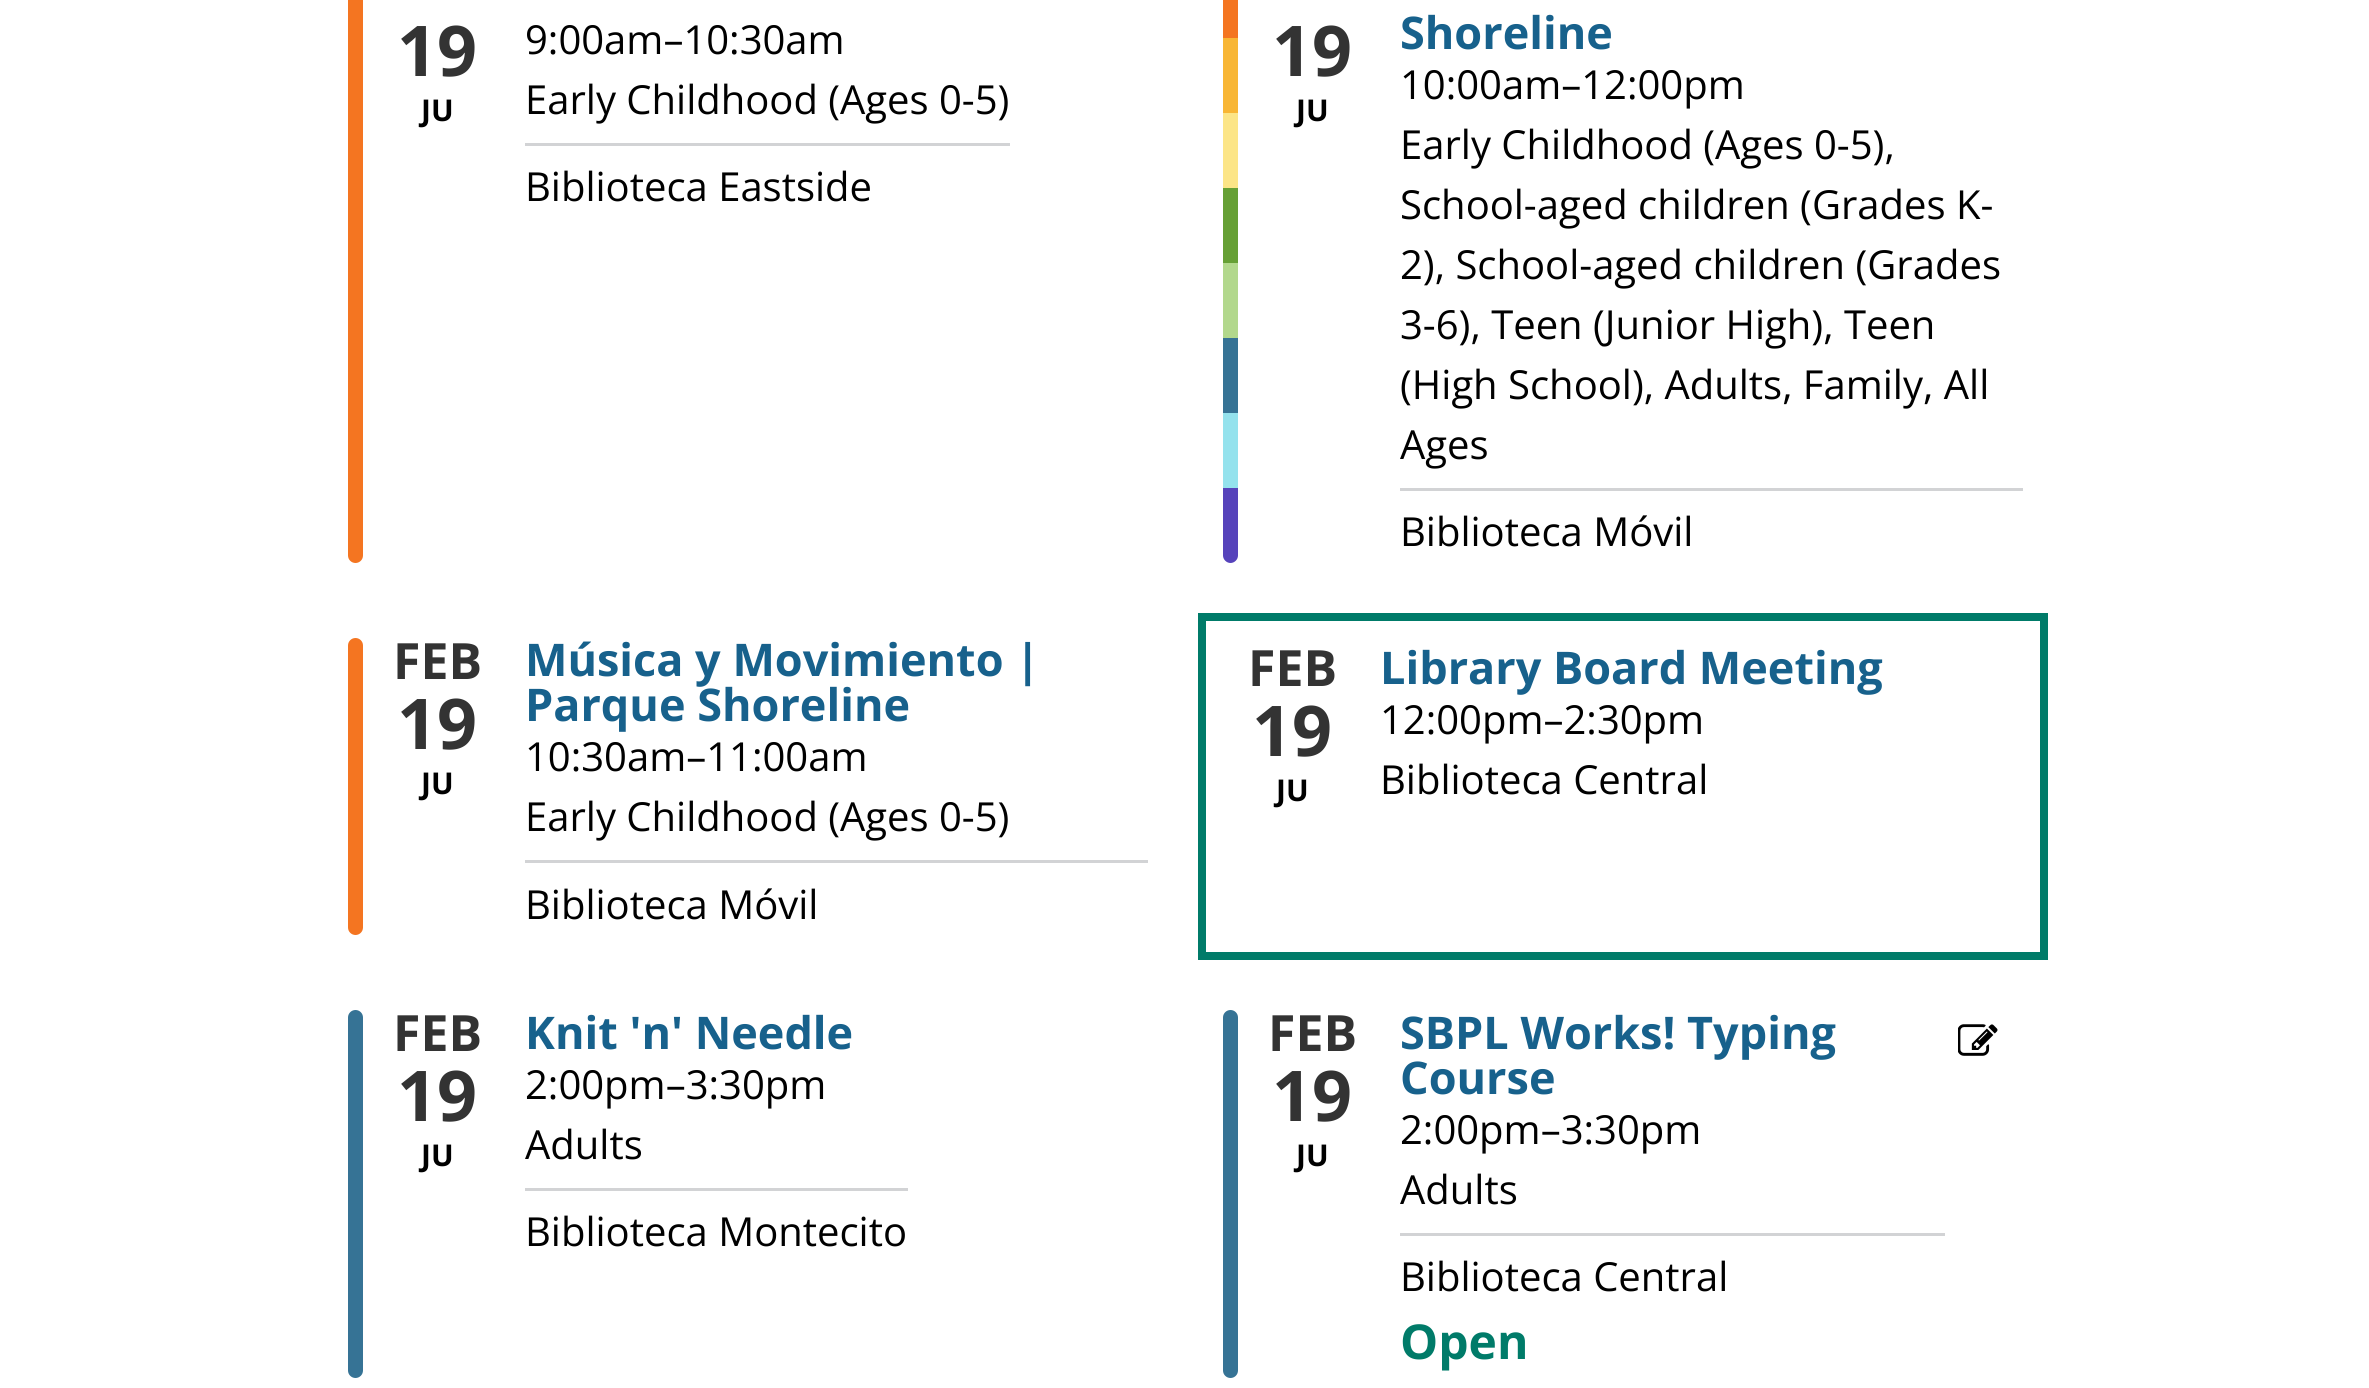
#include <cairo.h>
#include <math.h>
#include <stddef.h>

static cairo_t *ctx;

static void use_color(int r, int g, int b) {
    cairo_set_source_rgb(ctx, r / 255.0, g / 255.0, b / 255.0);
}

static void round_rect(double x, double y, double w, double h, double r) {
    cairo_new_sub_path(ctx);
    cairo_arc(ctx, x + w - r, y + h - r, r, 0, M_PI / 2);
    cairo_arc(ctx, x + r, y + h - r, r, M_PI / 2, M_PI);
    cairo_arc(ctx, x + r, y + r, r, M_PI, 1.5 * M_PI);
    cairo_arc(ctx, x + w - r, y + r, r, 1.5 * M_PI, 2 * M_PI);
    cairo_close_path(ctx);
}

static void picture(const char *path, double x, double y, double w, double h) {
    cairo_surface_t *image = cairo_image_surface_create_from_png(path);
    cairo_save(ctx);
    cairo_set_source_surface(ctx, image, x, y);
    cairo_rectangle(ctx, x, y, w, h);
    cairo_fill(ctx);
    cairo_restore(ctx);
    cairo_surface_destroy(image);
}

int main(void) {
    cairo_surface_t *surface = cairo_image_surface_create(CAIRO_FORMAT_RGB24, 2369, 1388);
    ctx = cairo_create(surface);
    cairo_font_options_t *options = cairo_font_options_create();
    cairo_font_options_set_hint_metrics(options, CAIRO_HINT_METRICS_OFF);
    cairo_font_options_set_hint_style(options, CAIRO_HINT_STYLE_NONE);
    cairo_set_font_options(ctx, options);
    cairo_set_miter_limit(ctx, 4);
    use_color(255, 255, 255);
    cairo_paint(ctx);
    use_color(244, 117, 33);
    round_rect(348, -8, 15, 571, 7.5);
    cairo_fill(ctx);
    cairo_select_font_face(ctx, "Open Sans", CAIRO_FONT_SLANT_NORMAL, CAIRO_FONT_WEIGHT_BOLD);
    cairo_set_font_size(ctx, 70);
    use_color(51, 51, 51);
    cairo_move_to(ctx, 397, 76);
    cairo_show_text(ctx, "19");
    cairo_set_font_size(ctx, 30);
    use_color(0, 0, 0);
    cairo_move_to(ctx, 421, 121);
    cairo_show_text(ctx, "JU");
    cairo_select_font_face(ctx, "Open Sans", CAIRO_FONT_SLANT_NORMAL, CAIRO_FONT_WEIGHT_NORMAL);
    cairo_set_font_size(ctx, 40);
    cairo_move_to(ctx, 525, 54);
    cairo_show_text(ctx, "9:00am–10:30am");
    cairo_move_to(ctx, 525, 114);
    cairo_show_text(ctx, "Early Childhood (Ages 0-5)");
    use_color(210, 211, 213);
    cairo_rectangle(ctx, 525, 143, 485, 3);
    cairo_fill(ctx);
    use_color(0, 0, 0);
    cairo_move_to(ctx, 525, 201);
    cairo_show_text(ctx, "Biblioteca Eastside");
    use_color(244, 117, 33);
    cairo_rectangle(ctx, 1223, 0, 15, 38);
    cairo_fill(ctx);
    use_color(248, 182, 53);
    cairo_rectangle(ctx, 1223, 38, 15, 75);
    cairo_fill(ctx);
    use_color(252, 229, 135);
    cairo_rectangle(ctx, 1223, 113, 15, 75);
    cairo_fill(ctx);
    use_color(102, 160, 53);
    cairo_rectangle(ctx, 1223, 188, 15, 75);
    cairo_fill(ctx);
    use_color(178, 216, 140);
    cairo_rectangle(ctx, 1223, 263, 15, 75);
    cairo_fill(ctx);
    use_color(54, 115, 149);
    cairo_rectangle(ctx, 1223, 338, 15, 75);
    cairo_fill(ctx);
    use_color(148, 226, 237);
    cairo_rectangle(ctx, 1223, 413, 15, 75);
    cairo_fill(ctx);
    use_color(86, 67, 187);
    cairo_new_path(ctx);
    cairo_move_to(ctx, 1223, 488);
    cairo_line_to(ctx, 1238, 488);
    cairo_line_to(ctx, 1238, 555.5);
    cairo_curve_to(ctx, 1238, 559.5, 1234.5, 563, 1230.5, 563);
    cairo_curve_to(ctx, 1226.5, 563, 1223, 559.5, 1223, 555.5);
    cairo_close_path(ctx);
    cairo_fill(ctx);
    cairo_select_font_face(ctx, "Open Sans", CAIRO_FONT_SLANT_NORMAL, CAIRO_FONT_WEIGHT_BOLD);
    cairo_set_font_size(ctx, 70);
    use_color(51, 51, 51);
    cairo_move_to(ctx, 1272, 76);
    cairo_show_text(ctx, "19");
    cairo_set_font_size(ctx, 30);
    use_color(0, 0, 0);
    cairo_move_to(ctx, 1296, 121);
    cairo_show_text(ctx, "JU");
    cairo_set_font_size(ctx, 45);
    use_color(23, 97, 140);
    cairo_move_to(ctx, 1400, 49);
    cairo_show_text(ctx, "Shoreline");
    cairo_select_font_face(ctx, "Open Sans", CAIRO_FONT_SLANT_NORMAL, CAIRO_FONT_WEIGHT_NORMAL);
    cairo_set_font_size(ctx, 40);
    use_color(0, 0, 0);
    cairo_move_to(ctx, 1400, 99);
    cairo_show_text(ctx, "10:00am–12:00pm");
    cairo_move_to(ctx, 1400, 159);
    cairo_show_text(ctx, "Early Childhood (Ages 0-5),");
    cairo_move_to(ctx, 1400, 219);
    cairo_show_text(ctx, "School-aged children (Grades K-");
    cairo_move_to(ctx, 1400, 279);
    cairo_show_text(ctx, "2), School-aged children (Grades");
    cairo_move_to(ctx, 1400, 339);
    cairo_show_text(ctx, "3-6), Teen (Junior High), Teen");
    cairo_move_to(ctx, 1400, 399);
    cairo_show_text(ctx, "(High School), Adults, Family, All");
    cairo_move_to(ctx, 1400, 459);
    cairo_show_text(ctx, "Ages");
    use_color(210, 211, 213);
    cairo_rectangle(ctx, 1400, 488, 623, 3);
    cairo_fill(ctx);
    use_color(0, 0, 0);
    cairo_move_to(ctx, 1400, 546);
    cairo_show_text(ctx, "Biblioteca Móvil");
    use_color(244, 117, 33);
    round_rect(348, 638, 15, 297, 7.5);
    cairo_fill(ctx);
    cairo_select_font_face(ctx, "Open Sans", CAIRO_FONT_SLANT_NORMAL, CAIRO_FONT_WEIGHT_BOLD);
    cairo_set_font_size(ctx, 50);
    use_color(51, 51, 51);
    cairo_move_to(ctx, 393, 679);
    cairo_show_text(ctx, "FEB");
    cairo_set_font_size(ctx, 70);
    cairo_move_to(ctx, 397, 749);
    cairo_show_text(ctx, "19");
    cairo_set_font_size(ctx, 30);
    use_color(0, 0, 0);
    cairo_move_to(ctx, 421, 794);
    cairo_show_text(ctx, "JU");
    cairo_set_font_size(ctx, 45);
    use_color(23, 97, 140);
    cairo_move_to(ctx, 525, 676);
    cairo_show_text(ctx, "Música y Movimiento |");
    cairo_move_to(ctx, 525, 721);
    cairo_show_text(ctx, "Parque Shoreline");
    cairo_select_font_face(ctx, "Open Sans", CAIRO_FONT_SLANT_NORMAL, CAIRO_FONT_WEIGHT_NORMAL);
    cairo_set_font_size(ctx, 40);
    use_color(0, 0, 0);
    cairo_move_to(ctx, 525, 771);
    cairo_show_text(ctx, "10:30am–11:00am");
    cairo_move_to(ctx, 525, 831);
    cairo_show_text(ctx, "Early Childhood (Ages 0-5)");
    use_color(210, 211, 213);
    cairo_rectangle(ctx, 525, 860, 623, 3);
    cairo_fill(ctx);
    use_color(0, 0, 0);
    cairo_move_to(ctx, 525, 919);
    cairo_show_text(ctx, "Biblioteca Móvil");
    cairo_rectangle(ctx, 1202, 617, 842, 339);
    use_color(0, 123, 105);
    cairo_set_line_width(ctx, 8);
    cairo_stroke(ctx);
    cairo_select_font_face(ctx, "Open Sans", CAIRO_FONT_SLANT_NORMAL, CAIRO_FONT_WEIGHT_BOLD);
    cairo_set_font_size(ctx, 50);
    use_color(51, 51, 51);
    cairo_move_to(ctx, 1248, 686);
    cairo_show_text(ctx, "FEB");
    cairo_set_font_size(ctx, 70);
    cairo_move_to(ctx, 1252, 756);
    cairo_show_text(ctx, "19");
    cairo_set_font_size(ctx, 30);
    use_color(0, 0, 0);
    cairo_move_to(ctx, 1276, 801);
    cairo_show_text(ctx, "JU");
    cairo_set_font_size(ctx, 45);
    use_color(23, 97, 140);
    cairo_move_to(ctx, 1380, 684);
    cairo_show_text(ctx, "Library Board Meeting");
    cairo_select_font_face(ctx, "Open Sans", CAIRO_FONT_SLANT_NORMAL, CAIRO_FONT_WEIGHT_NORMAL);
    cairo_set_font_size(ctx, 40);
    use_color(0, 0, 0);
    cairo_move_to(ctx, 1380, 734);
    cairo_show_text(ctx, "12:00pm–2:30pm");
    cairo_move_to(ctx, 1380, 794);
    cairo_show_text(ctx, "Biblioteca Central");
    use_color(54, 115, 149);
    round_rect(348, 1010, 15, 368, 7.5);
    cairo_fill(ctx);
    cairo_select_font_face(ctx, "Open Sans", CAIRO_FONT_SLANT_NORMAL, CAIRO_FONT_WEIGHT_BOLD);
    cairo_set_font_size(ctx, 50);
    use_color(51, 51, 51);
    cairo_move_to(ctx, 393, 1051);
    cairo_show_text(ctx, "FEB");
    cairo_set_font_size(ctx, 70);
    cairo_move_to(ctx, 397, 1121);
    cairo_show_text(ctx, "19");
    cairo_set_font_size(ctx, 30);
    use_color(0, 0, 0);
    cairo_move_to(ctx, 421, 1166);
    cairo_show_text(ctx, "JU");
    cairo_set_font_size(ctx, 45);
    use_color(23, 97, 140);
    cairo_move_to(ctx, 525, 1049);
    cairo_show_text(ctx, "Knit 'n' Needle");
    cairo_select_font_face(ctx, "Open Sans", CAIRO_FONT_SLANT_NORMAL, CAIRO_FONT_WEIGHT_NORMAL);
    cairo_set_font_size(ctx, 40);
    use_color(0, 0, 0);
    cairo_move_to(ctx, 525, 1099);
    cairo_show_text(ctx, "2:00pm–3:30pm");
    cairo_move_to(ctx, 525, 1159);
    cairo_show_text(ctx, "Adults");
    use_color(210, 211, 213);
    cairo_rectangle(ctx, 525, 1188, 383, 3);
    cairo_fill(ctx);
    use_color(0, 0, 0);
    cairo_move_to(ctx, 525, 1246);
    cairo_show_text(ctx, "Biblioteca Montecito");
    use_color(54, 115, 149);
    round_rect(1223, 1010, 15, 368, 7.5);
    cairo_fill(ctx);
    cairo_select_font_face(ctx, "Open Sans", CAIRO_FONT_SLANT_NORMAL, CAIRO_FONT_WEIGHT_BOLD);
    cairo_set_font_size(ctx, 50);
    use_color(51, 51, 51);
    cairo_move_to(ctx, 1268, 1051);
    cairo_show_text(ctx, "FEB");
    cairo_set_font_size(ctx, 70);
    cairo_move_to(ctx, 1272, 1121);
    cairo_show_text(ctx, "19");
    cairo_set_font_size(ctx, 30);
    use_color(0, 0, 0);
    cairo_move_to(ctx, 1296, 1166);
    cairo_show_text(ctx, "JU");
    cairo_set_font_size(ctx, 45);
    use_color(23, 97, 140);
    cairo_move_to(ctx, 1400, 1049);
    cairo_show_text(ctx, "SBPL Works! Typing");
    cairo_move_to(ctx, 1400, 1094);
    cairo_show_text(ctx, "Course");
    cairo_select_font_face(ctx, "Open Sans", CAIRO_FONT_SLANT_NORMAL, CAIRO_FONT_WEIGHT_NORMAL);
    cairo_set_font_size(ctx, 40);
    use_color(0, 0, 0);
    cairo_move_to(ctx, 1400, 1144);
    cairo_show_text(ctx, "2:00pm–3:30pm");
    cairo_move_to(ctx, 1400, 1204);
    cairo_show_text(ctx, "Adults");
    use_color(210, 211, 213);
    cairo_rectangle(ctx, 1400, 1233, 545, 3);
    cairo_fill(ctx);
    use_color(0, 0, 0);
    cairo_move_to(ctx, 1400, 1291);
    cairo_show_text(ctx, "Biblioteca Central");
    cairo_select_font_face(ctx, "Open Sans", CAIRO_FONT_SLANT_NORMAL, CAIRO_FONT_WEIGHT_BOLD);
    cairo_set_font_size(ctx, 48);
    use_color(0, 123, 105);
    cairo_move_to(ctx, 1400, 1359);
    cairo_show_text(ctx, "Open");
    picture("img1.png", 1958, 1024, 40, 32);
    cairo_surface_write_to_png(surface, "result.png");
    cairo_font_options_destroy(options);
    cairo_destroy(ctx);
    cairo_surface_destroy(surface);
    return 0;
}
